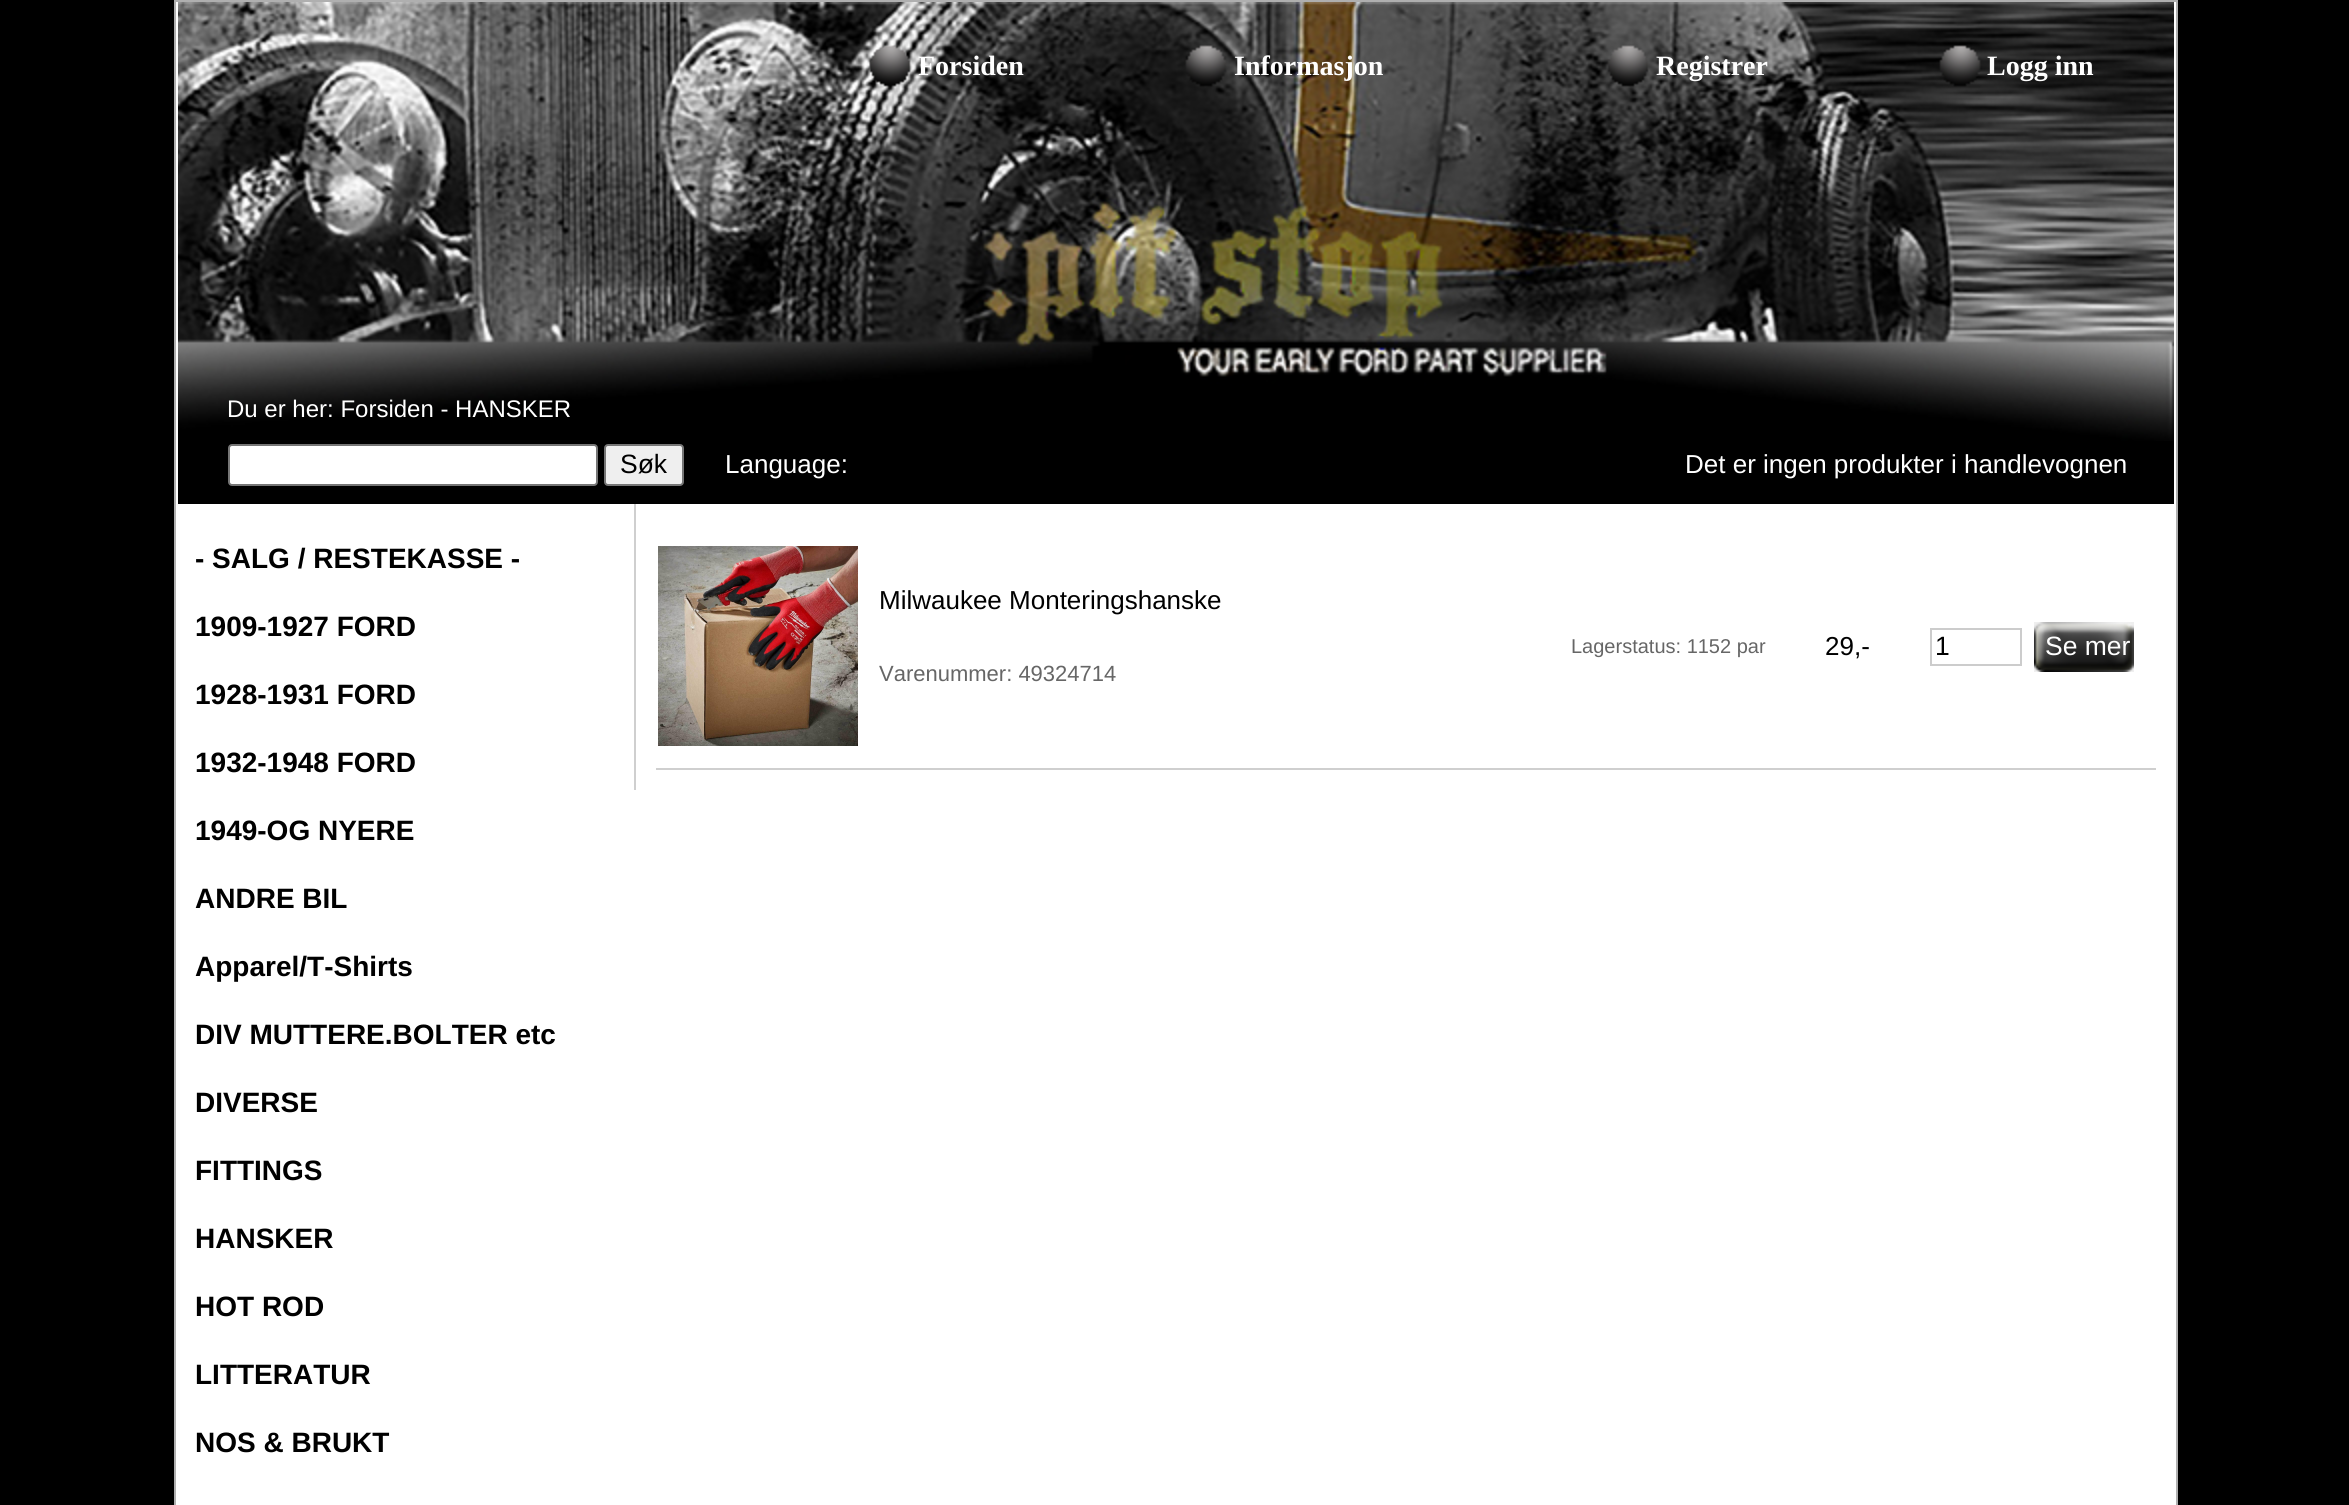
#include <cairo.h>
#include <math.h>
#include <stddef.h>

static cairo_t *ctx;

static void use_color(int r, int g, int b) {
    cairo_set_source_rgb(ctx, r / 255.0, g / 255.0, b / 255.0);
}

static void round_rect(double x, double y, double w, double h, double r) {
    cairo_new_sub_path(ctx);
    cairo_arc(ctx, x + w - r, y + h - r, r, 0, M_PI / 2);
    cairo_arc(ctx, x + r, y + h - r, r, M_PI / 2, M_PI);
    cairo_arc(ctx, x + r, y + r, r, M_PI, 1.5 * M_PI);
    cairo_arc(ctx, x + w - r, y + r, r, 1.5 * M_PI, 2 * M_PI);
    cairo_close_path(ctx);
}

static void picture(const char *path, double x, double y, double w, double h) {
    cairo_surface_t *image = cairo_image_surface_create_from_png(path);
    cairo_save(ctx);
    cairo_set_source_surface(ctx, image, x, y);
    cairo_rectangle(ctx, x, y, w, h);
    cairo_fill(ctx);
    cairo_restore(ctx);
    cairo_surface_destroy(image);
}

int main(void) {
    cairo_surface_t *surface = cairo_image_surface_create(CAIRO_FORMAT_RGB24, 2349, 1505);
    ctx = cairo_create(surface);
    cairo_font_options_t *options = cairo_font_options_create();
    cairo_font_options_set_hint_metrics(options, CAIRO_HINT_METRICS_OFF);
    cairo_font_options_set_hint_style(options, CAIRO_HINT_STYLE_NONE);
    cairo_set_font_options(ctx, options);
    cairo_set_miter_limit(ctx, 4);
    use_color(0, 0, 0);
    cairo_paint(ctx);
    use_color(255, 255, 255);
    cairo_rectangle(ctx, 175, 1, 2002, 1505);
    cairo_fill_preserve(ctx);
    use_color(175, 175, 175);
    cairo_stroke(ctx);
    use_color(0, 0, 0);
    cairo_rectangle(ctx, 178, 441, 1996, 63);
    cairo_fill(ctx);
    picture("img1.png", 178, 2, 1996, 439);
    picture("img2.png", 869, 45, 42, 42);
    cairo_select_font_face(ctx, "Liberation Serif", CAIRO_FONT_SLANT_NORMAL, CAIRO_FONT_WEIGHT_BOLD);
    cairo_set_font_size(ctx, 28);
    use_color(255, 255, 255);
    cairo_move_to(ctx, 918, 75);
    cairo_show_text(ctx, "Forsiden");
    picture("img3.png", 1185, 45, 42, 42);
    cairo_move_to(ctx, 1234, 75);
    cairo_show_text(ctx, "Informasjon");
    picture("img4.png", 1607, 45, 42, 42);
    cairo_move_to(ctx, 1656, 75);
    cairo_show_text(ctx, "Registrer");
    picture("img5.png", 1939, 45, 42, 42);
    cairo_move_to(ctx, 1987, 75);
    cairo_show_text(ctx, "Logg inn");
    cairo_select_font_face(ctx, "Liberation Sans", CAIRO_FONT_SLANT_NORMAL, CAIRO_FONT_WEIGHT_NORMAL);
    cairo_set_font_size(ctx, 24);
    cairo_move_to(ctx, 227, 417);
    cairo_show_text(ctx, "Du er her: Forsiden - HANSKER");
    round_rect(229, 445, 368, 40, 3);
    cairo_fill_preserve(ctx);
    use_color(118, 118, 118);
    cairo_stroke(ctx);
    use_color(239, 239, 239);
    round_rect(605, 445, 78, 40, 3);
    cairo_fill_preserve(ctx);
    use_color(118, 118, 118);
    cairo_stroke(ctx);
    cairo_set_font_size(ctx, 26.5);
    use_color(0, 0, 0);
    cairo_move_to(ctx, 620, 473);
    cairo_show_text(ctx, "Søk");
    cairo_set_font_size(ctx, 26);
    use_color(255, 255, 255);
    cairo_move_to(ctx, 725, 473);
    cairo_show_text(ctx, "Language:");
    cairo_move_to(ctx, 1685, 473);
    cairo_show_text(ctx, "Det er ingen produkter i handlevognen");
    cairo_select_font_face(ctx, "Liberation Sans", CAIRO_FONT_SLANT_NORMAL, CAIRO_FONT_WEIGHT_BOLD);
    cairo_set_font_size(ctx, 28);
    use_color(0, 0, 0);
    cairo_move_to(ctx, 195, 568);
    cairo_show_text(ctx, "- SALG / RESTEKASSE -");
    cairo_move_to(ctx, 195, 636);
    cairo_show_text(ctx, "1909-1927 FORD");
    cairo_move_to(ctx, 195, 704);
    cairo_show_text(ctx, "1928-1931 FORD");
    cairo_move_to(ctx, 195, 772);
    cairo_show_text(ctx, "1932-1948 FORD");
    cairo_move_to(ctx, 195, 840);
    cairo_show_text(ctx, "1949-OG NYERE");
    cairo_move_to(ctx, 195, 908);
    cairo_show_text(ctx, "ANDRE BIL");
    cairo_move_to(ctx, 195, 976);
    cairo_show_text(ctx, "Apparel/T-Shirts");
    cairo_move_to(ctx, 195, 1044);
    cairo_show_text(ctx, "DIV MUTTERE.BOLTER etc");
    cairo_move_to(ctx, 195, 1112);
    cairo_show_text(ctx, "DIVERSE");
    cairo_move_to(ctx, 195, 1180);
    cairo_show_text(ctx, "FITTINGS");
    cairo_move_to(ctx, 195, 1248);
    cairo_show_text(ctx, "HANSKER");
    cairo_move_to(ctx, 195, 1316);
    cairo_show_text(ctx, "HOT ROD");
    cairo_move_to(ctx, 195, 1384);
    cairo_show_text(ctx, "LITTERATUR");
    cairo_move_to(ctx, 195, 1452);
    cairo_show_text(ctx, "NOS & BRUKT");
    use_color(207, 207, 207);
    cairo_rectangle(ctx, 634, 504, 2, 286);
    cairo_fill(ctx);
    cairo_rectangle(ctx, 656, 768, 1500, 2);
    cairo_fill(ctx);
    picture("img6.png", 658, 546, 200, 200);
    cairo_select_font_face(ctx, "Liberation Sans", CAIRO_FONT_SLANT_NORMAL, CAIRO_FONT_WEIGHT_NORMAL);
    cairo_set_font_size(ctx, 26);
    use_color(0, 0, 0);
    cairo_move_to(ctx, 879, 609);
    cairo_show_text(ctx, "Milwaukee Monteringshanske");
    cairo_set_font_size(ctx, 22);
    use_color(102, 102, 102);
    cairo_move_to(ctx, 879, 681);
    cairo_show_text(ctx, "Varenummer: 49324714");
    cairo_set_font_size(ctx, 20);
    cairo_move_to(ctx, 1571, 653);
    cairo_show_text(ctx, "Lagerstatus: 1152 par");
    cairo_set_font_size(ctx, 26);
    use_color(0, 0, 0);
    cairo_move_to(ctx, 1825, 655);
    cairo_show_text(ctx, "29,-");
    cairo_rectangle(ctx, 1931, 629, 90, 36);
    use_color(204, 204, 204);
    cairo_stroke(ctx);
    cairo_set_font_size(ctx, 26.5);
    use_color(0, 0, 0);
    cairo_move_to(ctx, 1935, 655);
    cairo_show_text(ctx, "1");
    use_color(239, 239, 239);
    cairo_rectangle(ctx, 2034, 622, 100, 50);
    cairo_fill(ctx);
    picture("img7.png", 2034, 622, 100, 50);
    use_color(255, 255, 255);
    cairo_move_to(ctx, 2045, 655);
    cairo_show_text(ctx, "Se mer");
    cairo_surface_write_to_png(surface, "result.png");
    cairo_font_options_destroy(options);
    cairo_destroy(ctx);
    cairo_surface_destroy(surface);
    return 0;
}
